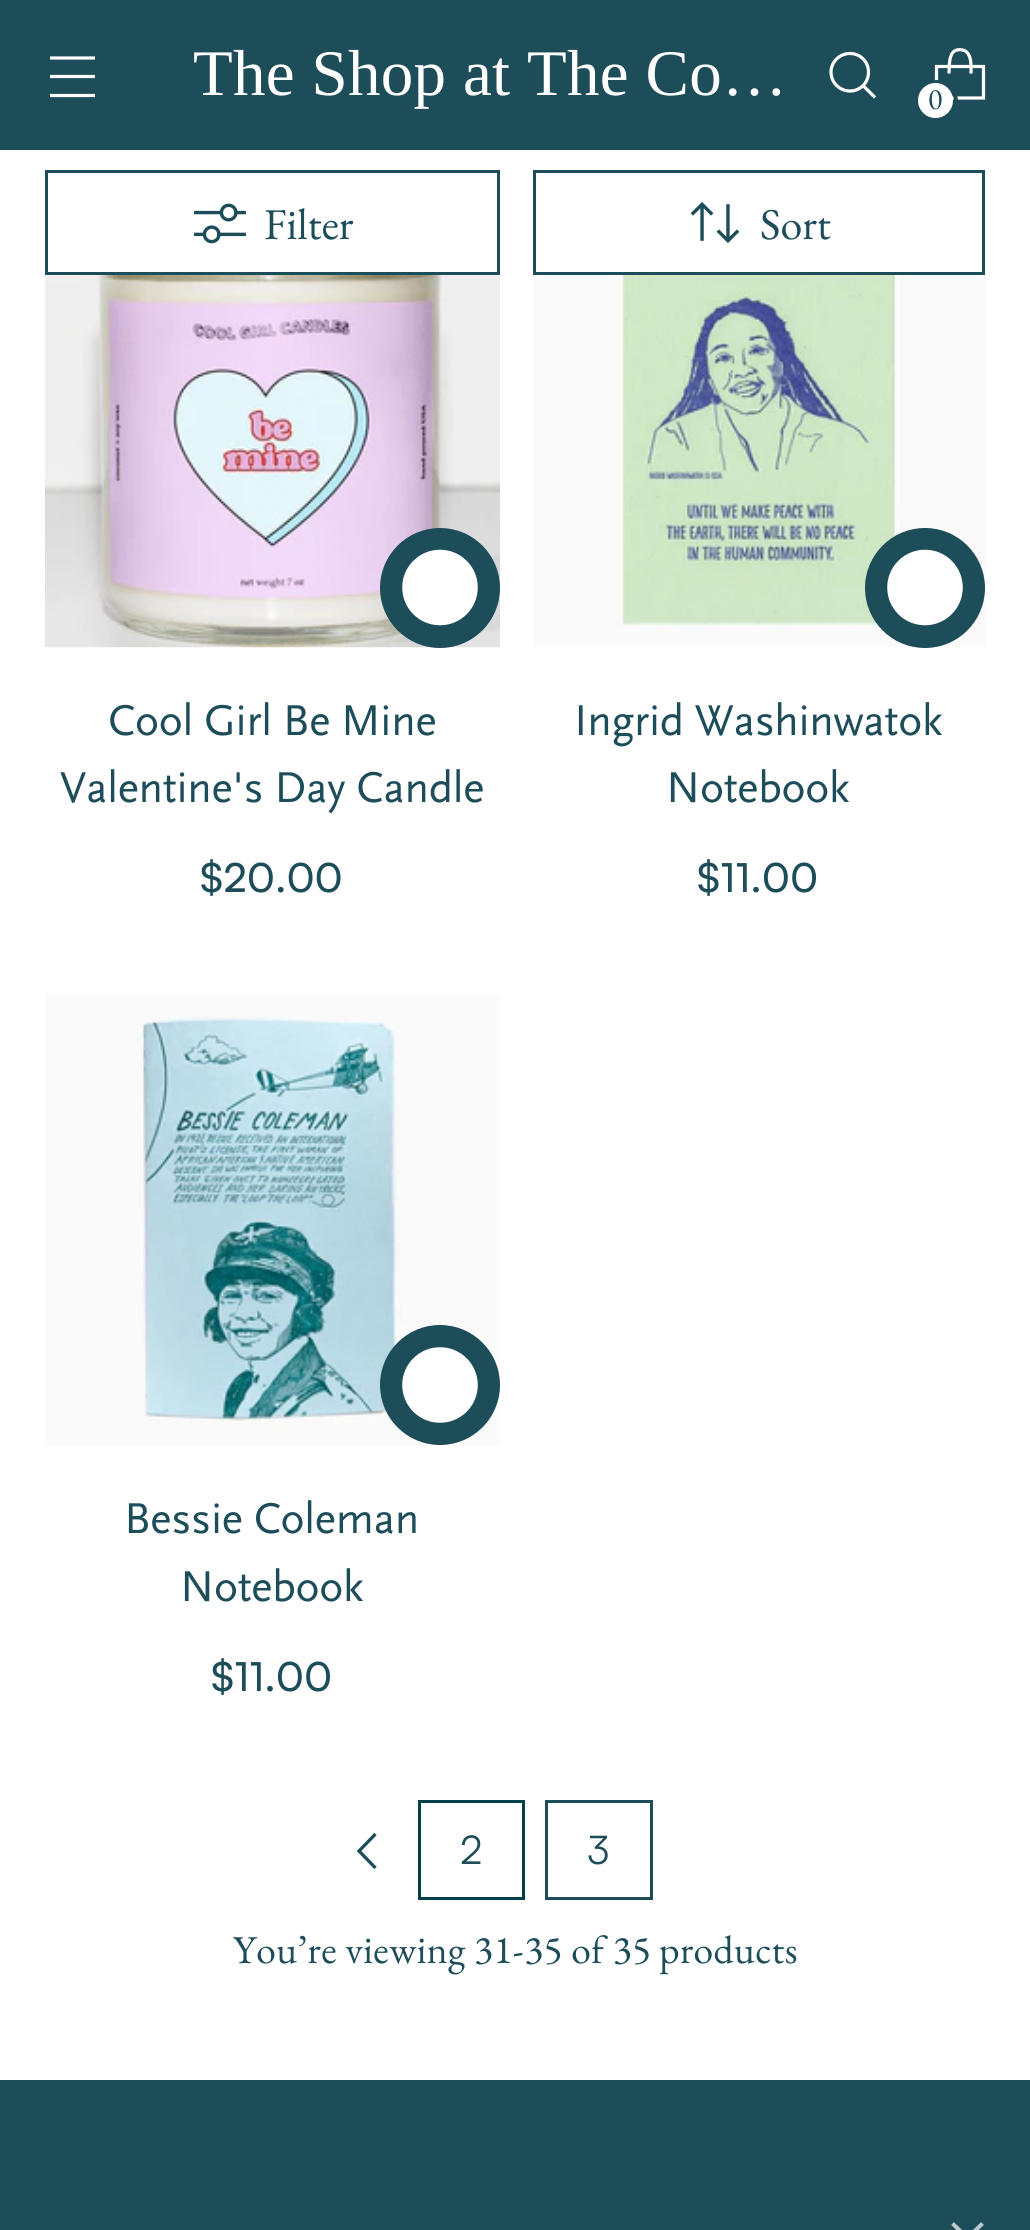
#include <cairo.h>
#include <math.h>
#include <stddef.h>

static cairo_t *ctx;

static void use_color(int r, int g, int b) {
    cairo_set_source_rgb(ctx, r / 255.0, g / 255.0, b / 255.0);
}

static void spaced_text(double x, double y, const char *s, double letter, double word) {
    cairo_move_to(ctx, x, y);
    while (*s) {
        char ch[5] = {0};
        int n = 0;
        do ch[n++] = *s++; while ((*s & 0xC0) == 0x80);
        cairo_show_text(ctx, ch);
        cairo_rel_move_to(ctx, letter + word * (*ch == ' '), 0);
    }
}

static void picture(const char *path, double x, double y, double w, double h) {
    cairo_surface_t *image = cairo_image_surface_create_from_png(path);
    cairo_save(ctx);
    cairo_set_source_surface(ctx, image, x, y);
    cairo_rectangle(ctx, x, y, w, h);
    cairo_fill(ctx);
    cairo_restore(ctx);
    cairo_surface_destroy(image);
}

int main(void) {
    cairo_surface_t *surface = cairo_image_surface_create(CAIRO_FORMAT_RGB24, 1030, 2230);
    ctx = cairo_create(surface);
    cairo_font_options_t *options = cairo_font_options_create();
    cairo_font_options_set_hint_metrics(options, CAIRO_HINT_METRICS_OFF);
    cairo_font_options_set_hint_style(options, CAIRO_HINT_STYLE_NONE);
    cairo_set_font_options(ctx, options);
    cairo_set_miter_limit(ctx, 4);
    use_color(255, 255, 255);
    cairo_paint(ctx);
    use_color(30, 77, 90);
    cairo_rectangle(ctx, 0, 0, 1030, 150);
    cairo_fill(ctx);
    cairo_new_path(ctx);
    cairo_move_to(ctx, 50, 76.5);
    cairo_line_to(ctx, 95, 76.5);
    cairo_move_to(ctx, 50, 58);
    cairo_line_to(ctx, 95, 58);
    cairo_move_to(ctx, 50, 95.5);
    cairo_line_to(ctx, 95, 95.5);
    use_color(255, 255, 255);
    cairo_set_line_width(ctx, 3.2);
    cairo_stroke(ctx);
    cairo_select_font_face(ctx, "Liberation Serif", CAIRO_FONT_SLANT_NORMAL, CAIRO_FONT_WEIGHT_NORMAL);
    cairo_set_font_size(ctx, 65);
    spaced_text(193, 95, "The Shop at The Co…", 0.3, 0);
    cairo_new_path(ctx);
    cairo_move_to(ctx, 850, 91);
    cairo_curve_to(ctx, 860.5, 91, 868.5, 82.5, 868.5, 72);
    cairo_curve_to(ctx, 868.5, 62, 860.5, 53.5, 850, 53.5);
    cairo_curve_to(ctx, 839.5, 53.5, 831, 62, 831, 72);
    cairo_curve_to(ctx, 831, 82.5, 839.5, 91, 850, 91);
    cairo_close_path(ctx);
    cairo_set_line_cap(ctx, CAIRO_LINE_CAP_ROUND);
    cairo_stroke(ctx);
    cairo_new_path(ctx);
    cairo_move_to(ctx, 863.5, 86);
    cairo_line_to(ctx, 875, 97.5);
    cairo_set_line_cap(ctx, CAIRO_LINE_CAP_BUTT);
    cairo_stroke(ctx);
    cairo_new_path(ctx);
    cairo_move_to(ctx, 971, 73.5);
    cairo_curve_to(ctx, 971, 68, 971.5, 62, 969.5, 56.5);
    cairo_curve_to(ctx, 968, 53, 966, 50.5, 962.5, 50);
    cairo_curve_to(ctx, 948, 47, 949.5, 64.5, 949, 73.5);
    cairo_set_line_join(ctx, CAIRO_LINE_JOIN_BEVEL);
    cairo_stroke(ctx);
    cairo_new_path(ctx);
    cairo_move_to(ctx, 983.5, 98);
    cairo_line_to(ctx, 983.5, 66.5);
    cairo_line_to(ctx, 936.5, 66.5);
    cairo_line_to(ctx, 936.5, 98);
    cairo_close_path(ctx);
    cairo_set_line_join(ctx, CAIRO_LINE_JOIN_MITER);
    cairo_stroke(ctx);
    cairo_arc(ctx, 936.5, 101.5, 19.5, 0, 2 * M_PI);
    use_color(30, 77, 90);
    cairo_set_line_width(ctx, 4);
    cairo_stroke(ctx);
    use_color(255, 255, 255);
    cairo_arc(ctx, 935.5, 100.5, 17.5, 0, 2 * M_PI);
    cairo_fill(ctx);
    cairo_select_font_face(ctx, "EB Garamond", CAIRO_FONT_SLANT_NORMAL, CAIRO_FONT_WEIGHT_NORMAL);
    cairo_set_font_size(ctx, 30);
    use_color(30, 77, 90);
    spaced_text(928, 109, "0", 0.45, 0);
    cairo_rectangle(ctx, 46.5, 171.5, 452, 102);
    cairo_set_line_width(ctx, 3);
    cairo_stroke(ctx);
    picture("img1.png", 194, 203, 52, 41);
    cairo_set_font_size(ctx, 44);
    cairo_move_to(ctx, 264, 239);
    cairo_show_text(ctx, "Filter");
    cairo_rectangle(ctx, 534.5, 171.5, 449, 102);
    cairo_stroke(ctx);
    picture("img2.png", 690, 202, 50, 41);
    cairo_move_to(ctx, 760, 239);
    cairo_show_text(ctx, "Sort");
    picture("img3.png", 45, 275, 455, 373);
    cairo_arc(ctx, 440, 588, 60, 0, 2 * M_PI);
    cairo_fill(ctx);
    picture("img4.png", 402, 549, 76, 77);
    cairo_select_font_face(ctx, "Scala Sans", CAIRO_FONT_SLANT_NORMAL, CAIRO_FONT_WEIGHT_NORMAL);
    cairo_set_font_size(ctx, 45);
    spaced_text(108, 735, "Cool Girl Be Mine", -0.25, 0);
    spaced_text(60, 802, "Valentine's Day Candle", -0.25, 0);
    cairo_select_font_face(ctx, "Satoshi Medium", CAIRO_FONT_SLANT_NORMAL, CAIRO_FONT_WEIGHT_NORMAL);
    cairo_set_font_size(ctx, 40);
    spaced_text(200, 892, "$20.00", 0.45, 0);
    picture("img5.png", 533, 275, 452, 372);
    cairo_arc(ctx, 925, 588, 60, 0, 2 * M_PI);
    cairo_fill(ctx);
    picture("img4.png", 887, 549, 76, 77);
    cairo_select_font_face(ctx, "Scala Sans", CAIRO_FONT_SLANT_NORMAL, CAIRO_FONT_WEIGHT_NORMAL);
    cairo_set_font_size(ctx, 45);
    spaced_text(574, 735, "Ingrid Washinwatok", -0.25, 0);
    spaced_text(666, 802, "Notebook", -0.25, 0);
    cairo_select_font_face(ctx, "Satoshi Medium", CAIRO_FONT_SLANT_NORMAL, CAIRO_FONT_WEIGHT_NORMAL);
    cairo_set_font_size(ctx, 40);
    spaced_text(697, 892, "$11.00", 0.45, 0);
    picture("img6.png", 45, 993, 455, 452);
    cairo_arc(ctx, 440, 1385, 60, 0, 2 * M_PI);
    cairo_fill(ctx);
    picture("img7.png", 402, 1347, 76, 76);
    cairo_select_font_face(ctx, "Scala Sans", CAIRO_FONT_SLANT_NORMAL, CAIRO_FONT_WEIGHT_NORMAL);
    cairo_set_font_size(ctx, 45);
    spaced_text(124, 1533, "Bessie Coleman", -0.25, 0);
    spaced_text(180, 1601, "Notebook", -0.25, 0);
    cairo_select_font_face(ctx, "Satoshi Medium", CAIRO_FONT_SLANT_NORMAL, CAIRO_FONT_WEIGHT_NORMAL);
    cairo_set_font_size(ctx, 40);
    spaced_text(211, 1691, "$11.00", 0.45, 0);
    cairo_new_path(ctx);
    cairo_move_to(ctx, 375.5, 1834);
    cairo_line_to(ctx, 359, 1851);
    cairo_line_to(ctx, 375.5, 1868);
    cairo_set_line_width(ctx, 3.3);
    cairo_stroke(ctx);
    cairo_rectangle(ctx, 419.5, 1801.5, 104, 97);
    use_color(2, 65, 74);
    cairo_set_line_width(ctx, 3);
    cairo_stroke(ctx);
    cairo_select_font_face(ctx, "Satoshi", CAIRO_FONT_SLANT_NORMAL, CAIRO_FONT_WEIGHT_NORMAL);
    cairo_set_font_size(ctx, 39.5);
    use_color(30, 77, 90);
    spaced_text(460, 1864, "2", 0.45, 0);
    cairo_rectangle(ctx, 546.5, 1801.5, 105, 97);
    cairo_stroke(ctx);
    spaced_text(587, 1864, "3", 0.45, 0);
    cairo_select_font_face(ctx, "EB Garamond", CAIRO_FONT_SLANT_NORMAL, CAIRO_FONT_WEIGHT_NORMAL);
    spaced_text(233, 1963, "You’re viewing 31-35 of 35", 0.45, 0);
    spaced_text(659, 1963, "products", 0.45, 0);
    cairo_rectangle(ctx, 0, 2080, 1030, 150);
    cairo_fill(ctx);
    cairo_new_path(ctx);
    cairo_move_to(ctx, 952.5, 2223.5);
    cairo_line_to(ctx, 967.5, 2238);
    cairo_line_to(ctx, 982.5, 2223.5);
    use_color(188, 202, 206);
    cairo_set_line_width(ctx, 4);
    cairo_stroke(ctx);
    cairo_surface_write_to_png(surface, "result.png");
    cairo_font_options_destroy(options);
    cairo_destroy(ctx);
    cairo_surface_destroy(surface);
    return 0;
}
